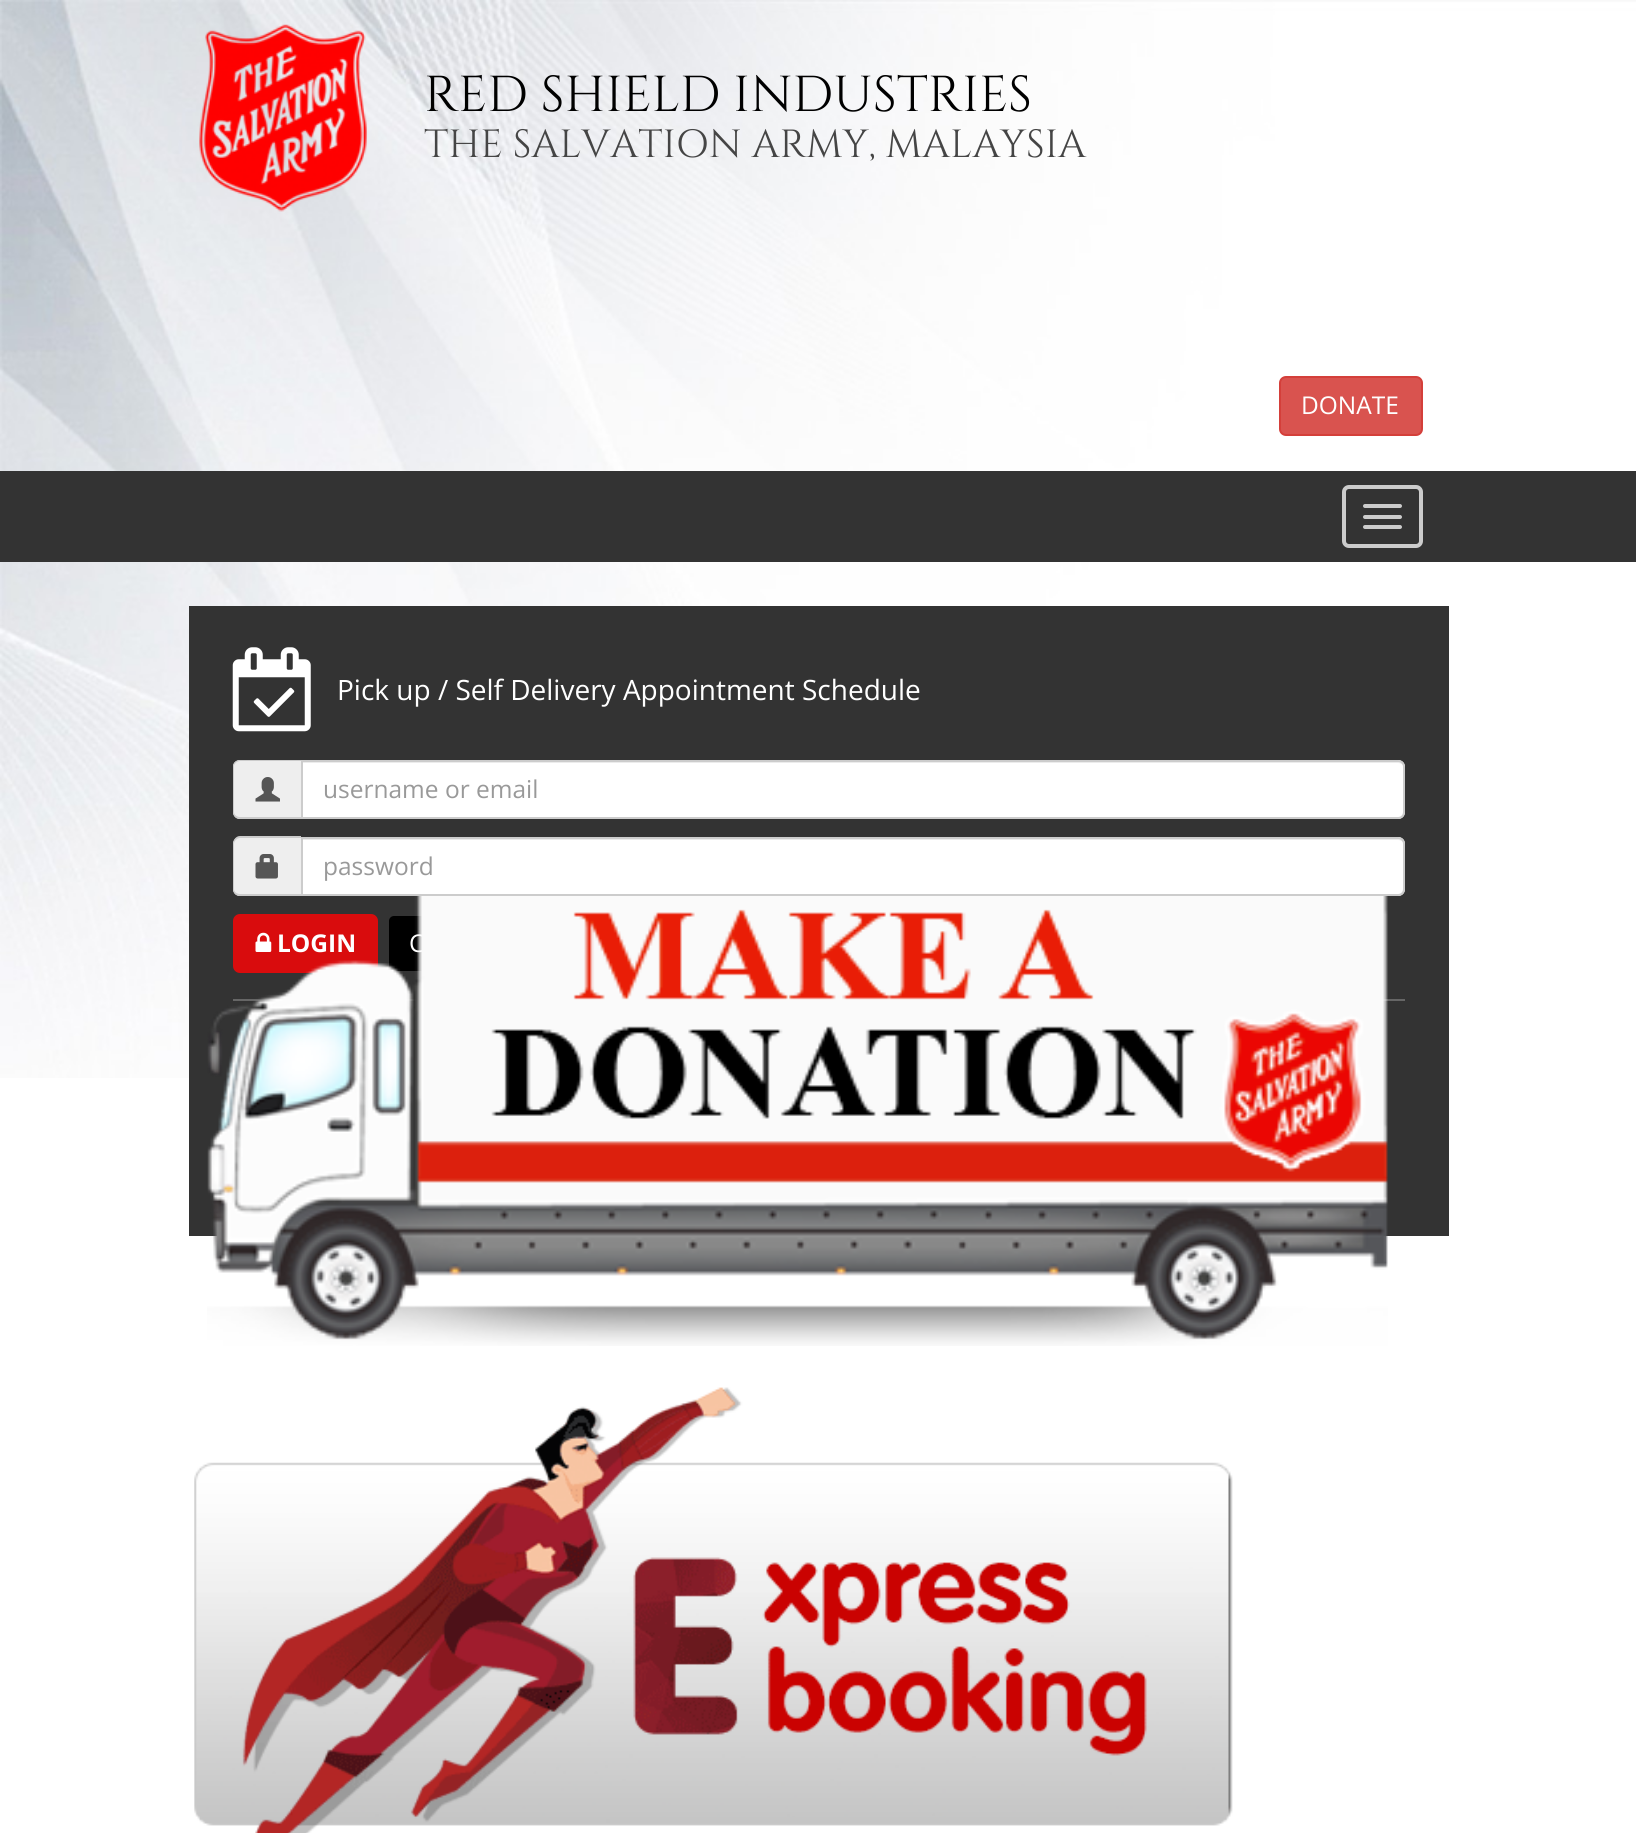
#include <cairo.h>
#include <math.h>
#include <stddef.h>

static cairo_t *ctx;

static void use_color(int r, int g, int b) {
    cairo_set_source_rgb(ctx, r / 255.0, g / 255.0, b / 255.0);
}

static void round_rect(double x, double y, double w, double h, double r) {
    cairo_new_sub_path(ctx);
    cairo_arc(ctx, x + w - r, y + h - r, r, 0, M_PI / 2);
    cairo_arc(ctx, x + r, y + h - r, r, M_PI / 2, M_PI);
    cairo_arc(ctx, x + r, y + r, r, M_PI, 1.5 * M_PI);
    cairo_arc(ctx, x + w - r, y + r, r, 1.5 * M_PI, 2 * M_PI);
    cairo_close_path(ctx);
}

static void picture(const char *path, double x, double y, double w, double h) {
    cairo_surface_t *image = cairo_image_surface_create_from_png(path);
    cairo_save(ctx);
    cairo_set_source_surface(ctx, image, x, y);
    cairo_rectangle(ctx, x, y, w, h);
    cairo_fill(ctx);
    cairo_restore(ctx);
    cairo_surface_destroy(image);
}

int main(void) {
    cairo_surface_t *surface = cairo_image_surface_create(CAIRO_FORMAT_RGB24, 1636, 1833);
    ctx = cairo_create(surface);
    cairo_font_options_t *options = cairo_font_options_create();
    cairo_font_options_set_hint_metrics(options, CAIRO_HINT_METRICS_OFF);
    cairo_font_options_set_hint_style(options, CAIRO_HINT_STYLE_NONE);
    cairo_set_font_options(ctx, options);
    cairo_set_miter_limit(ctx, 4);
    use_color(255, 255, 255);
    cairo_paint(ctx);
    picture("img1.png", 0, 0, 1636, 1078);
    picture("img2.png", 199, 24, 168, 188);
    cairo_select_font_face(ctx, "Cinzel", CAIRO_FONT_SLANT_NORMAL, CAIRO_FONT_WEIGHT_NORMAL);
    cairo_set_font_size(ctx, 50.4);
    use_color(0, 0, 0);
    cairo_move_to(ctx, 424, 111);
    cairo_show_text(ctx, "RED SHIELD INDUSTRIES");
    cairo_set_font_size(ctx, 39.25);
    use_color(69, 69, 69);
    cairo_move_to(ctx, 424, 157);
    cairo_show_text(ctx, "THE SALVATION ARMY, MALAYSIA");
    use_color(217, 83, 79);
    round_rect(1280, 377, 142, 58, 6);
    cairo_fill_preserve(ctx);
    use_color(212, 63, 58);
    cairo_stroke(ctx);
    cairo_select_font_face(ctx, "Open Sans", CAIRO_FONT_SLANT_NORMAL, CAIRO_FONT_WEIGHT_NORMAL);
    cairo_set_font_size(ctx, 24.5);
    use_color(255, 255, 255);
    cairo_move_to(ctx, 1301, 414);
    cairo_show_text(ctx, "DONATE");
    use_color(51, 51, 51);
    cairo_rectangle(ctx, 0, 471, 1636, 91);
    cairo_fill(ctx);
    round_rect(1344, 487, 77, 59, 5);
    use_color(204, 204, 204);
    cairo_set_line_width(ctx, 4);
    cairo_stroke(ctx);
    round_rect(1363, 504, 39, 4, 2);
    cairo_fill(ctx);
    round_rect(1363, 515, 39, 4, 2);
    cairo_fill(ctx);
    round_rect(1363, 525, 39, 4, 2);
    cairo_fill(ctx);
    use_color(51, 51, 51);
    cairo_rectangle(ctx, 189, 606, 1260, 630);
    cairo_fill(ctx);
    picture("img3.png", 232, 647, 79, 85);
    cairo_set_font_size(ctx, 28);
    use_color(255, 255, 255);
    cairo_move_to(ctx, 337, 700);
    cairo_show_text(ctx, "Pick up / Self Delivery Appointment Schedule");
    use_color(238, 238, 238);
    cairo_new_path(ctx);
    cairo_move_to(ctx, 240, 760);
    cairo_line_to(ctx, 301, 760);
    cairo_line_to(ctx, 301, 819);
    cairo_line_to(ctx, 240, 819);
    cairo_curve_to(ctx, 236, 819, 233, 816, 233, 812);
    cairo_line_to(ctx, 233, 767);
    cairo_curve_to(ctx, 233, 763, 236, 760, 240, 760);
    cairo_close_path(ctx);
    cairo_fill(ctx);
    use_color(204, 204, 204);
    cairo_set_fill_rule(ctx, CAIRO_FILL_RULE_EVEN_ODD);
    cairo_new_path(ctx);
    cairo_move_to(ctx, 240, 760);
    cairo_line_to(ctx, 301, 760);
    cairo_line_to(ctx, 301, 819);
    cairo_line_to(ctx, 240, 819);
    cairo_curve_to(ctx, 236, 819, 233, 816, 233, 812);
    cairo_line_to(ctx, 233, 766);
    cairo_curve_to(ctx, 233, 763, 236, 760, 240, 760);
    cairo_close_path(ctx);
    cairo_move_to(ctx, 240, 761);
    cairo_line_to(ctx, 301, 761);
    cairo_line_to(ctx, 301, 817);
    cairo_line_to(ctx, 240, 817);
    cairo_curve_to(ctx, 237, 817, 234, 815, 234, 812);
    cairo_line_to(ctx, 234, 766);
    cairo_curve_to(ctx, 234, 764, 237, 761, 240, 761);
    cairo_close_path(ctx);
    cairo_fill(ctx);
    picture("img4.png", 255, 777, 25, 25);
    use_color(255, 255, 255);
    cairo_new_path(ctx);
    cairo_move_to(ctx, 301, 760);
    cairo_line_to(ctx, 1398, 760);
    cairo_curve_to(ctx, 1402, 760, 1405, 763, 1405, 767);
    cairo_line_to(ctx, 1405, 812);
    cairo_curve_to(ctx, 1405, 816, 1402, 819, 1398, 819);
    cairo_line_to(ctx, 301, 819);
    cairo_close_path(ctx);
    cairo_fill(ctx);
    use_color(236, 236, 236);
    cairo_set_fill_rule(ctx, CAIRO_FILL_RULE_WINDING);
    cairo_new_path(ctx);
    cairo_move_to(ctx, 303, 763);
    cairo_line_to(ctx, 1398, 763);
    cairo_curve_to(ctx, 1401, 763, 1404, 765, 1404, 768);
    cairo_line_to(ctx, 1404, 766);
    cairo_curve_to(ctx, 1404, 763, 1402, 761, 1399, 761);
    cairo_line_to(ctx, 303, 761);
    cairo_close_path(ctx);
    cairo_fill(ctx);
    cairo_new_path(ctx);
    cairo_move_to(ctx, 302, 761);
    cairo_line_to(ctx, 1398, 761);
    cairo_curve_to(ctx, 1401.5, 761, 1404, 763.5, 1404, 767);
    cairo_line_to(ctx, 1404, 812);
    cairo_curve_to(ctx, 1404, 815.5, 1401.5, 818, 1398, 818);
    cairo_line_to(ctx, 302, 818);
    cairo_close_path(ctx);
    use_color(204, 204, 204);
    cairo_set_line_width(ctx, 2);
    cairo_stroke(ctx);
    cairo_set_font_size(ctx, 24.5);
    use_color(153, 153, 153);
    cairo_move_to(ctx, 323, 798);
    cairo_show_text(ctx, "username or email");
    use_color(238, 238, 238);
    cairo_new_path(ctx);
    cairo_move_to(ctx, 240, 837);
    cairo_line_to(ctx, 301, 837);
    cairo_line_to(ctx, 301, 896);
    cairo_line_to(ctx, 240, 896);
    cairo_curve_to(ctx, 236, 896, 233, 893, 233, 889);
    cairo_line_to(ctx, 233, 844);
    cairo_curve_to(ctx, 233, 840, 236, 837, 240, 837);
    cairo_close_path(ctx);
    cairo_fill(ctx);
    use_color(204, 204, 204);
    cairo_set_fill_rule(ctx, CAIRO_FILL_RULE_EVEN_ODD);
    cairo_new_path(ctx);
    cairo_move_to(ctx, 240, 836);
    cairo_line_to(ctx, 301, 836);
    cairo_line_to(ctx, 301, 896);
    cairo_line_to(ctx, 240, 896);
    cairo_curve_to(ctx, 236, 896, 233, 893, 233, 889);
    cairo_line_to(ctx, 233, 844);
    cairo_curve_to(ctx, 233, 840, 236, 836, 240, 836);
    cairo_close_path(ctx);
    cairo_move_to(ctx, 240, 838);
    cairo_line_to(ctx, 301, 838);
    cairo_line_to(ctx, 301, 894);
    cairo_line_to(ctx, 240, 894);
    cairo_curve_to(ctx, 237, 894, 234, 892, 234, 889);
    cairo_line_to(ctx, 234, 844);
    cairo_curve_to(ctx, 234, 841, 237, 838, 240, 838);
    cairo_close_path(ctx);
    cairo_fill(ctx);
    picture("img5.png", 255, 854, 23, 25);
    use_color(255, 255, 255);
    cairo_new_path(ctx);
    cairo_move_to(ctx, 301, 837);
    cairo_line_to(ctx, 1398, 837);
    cairo_curve_to(ctx, 1402, 837, 1405, 840, 1405, 844);
    cairo_line_to(ctx, 1405, 889);
    cairo_curve_to(ctx, 1405, 893, 1402, 896, 1398, 896);
    cairo_line_to(ctx, 301, 896);
    cairo_close_path(ctx);
    cairo_fill(ctx);
    use_color(236, 236, 236);
    cairo_set_fill_rule(ctx, CAIRO_FILL_RULE_WINDING);
    cairo_new_path(ctx);
    cairo_move_to(ctx, 303, 840);
    cairo_line_to(ctx, 1398, 840);
    cairo_curve_to(ctx, 1401, 840, 1404, 842, 1404, 845);
    cairo_line_to(ctx, 1404, 843);
    cairo_curve_to(ctx, 1404, 840, 1402, 838, 1399, 838);
    cairo_line_to(ctx, 303, 838);
    cairo_close_path(ctx);
    cairo_fill(ctx);
    cairo_new_path(ctx);
    cairo_move_to(ctx, 302, 838);
    cairo_line_to(ctx, 1398, 838);
    cairo_curve_to(ctx, 1401.5, 838, 1404, 840.5, 1404, 844);
    cairo_line_to(ctx, 1404, 889);
    cairo_curve_to(ctx, 1404, 892.5, 1401.5, 895, 1398, 895);
    cairo_line_to(ctx, 302, 895);
    cairo_close_path(ctx);
    use_color(204, 204, 204);
    cairo_stroke(ctx);
    use_color(153, 153, 153);
    cairo_move_to(ctx, 323, 875);
    cairo_show_text(ctx, "password");
    use_color(217, 12, 13);
    round_rect(234, 915, 143, 57, 6);
    cairo_fill_preserve(ctx);
    cairo_stroke(ctx);
    picture("img7.png", 255, 932, 17, 20);
    cairo_select_font_face(ctx, "Open Sans", CAIRO_FONT_SLANT_NORMAL, CAIRO_FONT_WEIGHT_BOLD);
    use_color(255, 255, 255);
    cairo_move_to(ctx, 277, 952);
    cairo_show_text(ctx, "LOGIN");
    use_color(0, 0, 0);
    round_rect(388, 915, 217, 57, 6);
    cairo_fill_preserve(ctx);
    use_color(51, 51, 51);
    cairo_stroke(ctx);
    cairo_select_font_face(ctx, "Open Sans", CAIRO_FONT_SLANT_NORMAL, CAIRO_FONT_WEIGHT_NORMAL);
    use_color(255, 255, 255);
    cairo_move_to(ctx, 409, 952);
    cairo_show_text(ctx, "C");
    use_color(102, 102, 102);
    cairo_rectangle(ctx, 233, 999, 1172, 2);
    cairo_fill(ctx);
    picture("img6.png", 207, 896, 1181, 450);
    picture("img8.png", 194, 1387, 1039, 446);
    cairo_surface_write_to_png(surface, "result.png");
    cairo_font_options_destroy(options);
    cairo_destroy(ctx);
    cairo_surface_destroy(surface);
    return 0;
}
